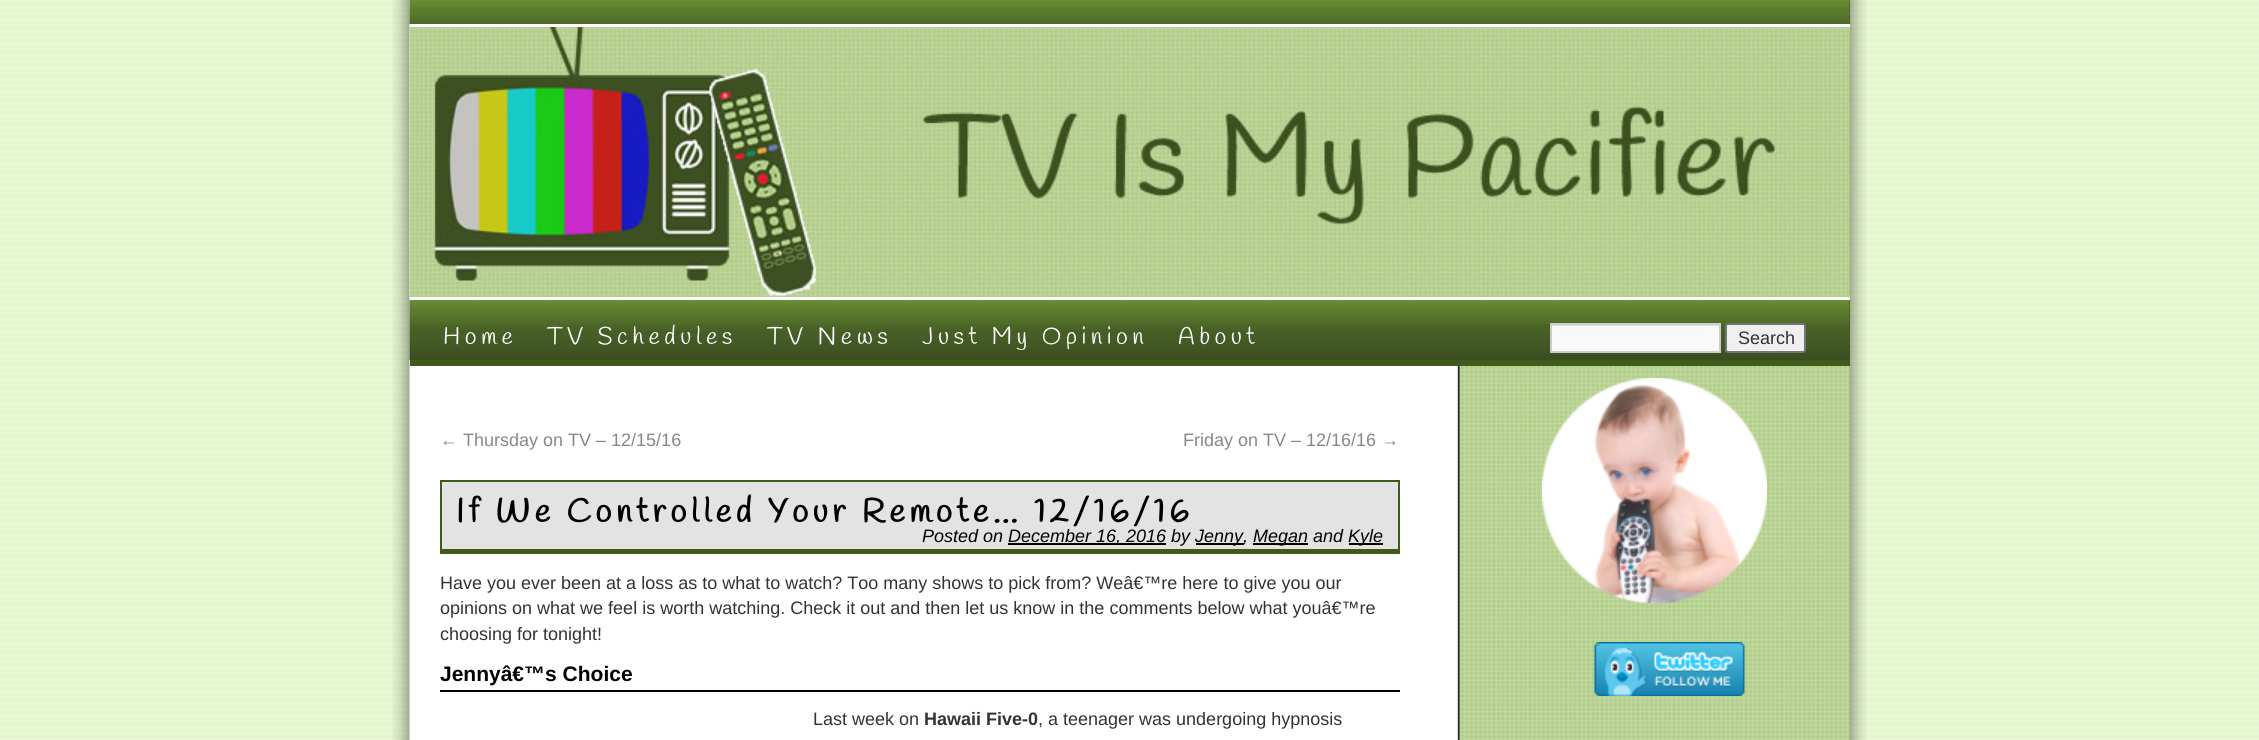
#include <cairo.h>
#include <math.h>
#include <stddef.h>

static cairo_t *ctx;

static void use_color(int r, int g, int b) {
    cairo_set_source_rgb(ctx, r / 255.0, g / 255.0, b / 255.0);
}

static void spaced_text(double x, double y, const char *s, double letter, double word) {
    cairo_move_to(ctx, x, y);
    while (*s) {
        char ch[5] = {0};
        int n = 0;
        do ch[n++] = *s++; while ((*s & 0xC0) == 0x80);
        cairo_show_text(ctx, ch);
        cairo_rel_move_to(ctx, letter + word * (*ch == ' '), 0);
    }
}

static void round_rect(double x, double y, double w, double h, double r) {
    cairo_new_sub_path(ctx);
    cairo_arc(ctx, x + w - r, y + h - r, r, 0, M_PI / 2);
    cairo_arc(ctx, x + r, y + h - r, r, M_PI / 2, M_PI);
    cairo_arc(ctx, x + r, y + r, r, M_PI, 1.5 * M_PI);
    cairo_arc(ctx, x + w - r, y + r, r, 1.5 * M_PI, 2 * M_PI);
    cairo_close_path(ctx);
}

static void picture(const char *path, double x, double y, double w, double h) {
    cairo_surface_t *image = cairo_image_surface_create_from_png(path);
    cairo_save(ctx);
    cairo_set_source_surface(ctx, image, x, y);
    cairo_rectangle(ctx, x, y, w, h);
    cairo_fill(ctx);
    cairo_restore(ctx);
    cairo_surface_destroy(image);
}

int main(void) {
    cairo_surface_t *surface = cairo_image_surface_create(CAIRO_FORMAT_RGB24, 2259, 740);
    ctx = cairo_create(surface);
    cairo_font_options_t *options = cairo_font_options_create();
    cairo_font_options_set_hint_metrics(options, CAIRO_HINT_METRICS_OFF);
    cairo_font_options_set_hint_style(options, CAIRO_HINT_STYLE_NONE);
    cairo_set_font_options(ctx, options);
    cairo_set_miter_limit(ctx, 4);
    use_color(255, 255, 255);
    cairo_paint(ctx);
    picture("img1.png", 0, 0, 2259, 740);
    picture("img2.png", 392, 0, 1475, 740);
    use_color(64, 90, 28);
    cairo_rectangle(ctx, 1849, 0, 1, 24);
    cairo_fill(ctx);
    picture("img3.png", 409, 0, 1441, 24);
    use_color(255, 255, 255);
    cairo_rectangle(ctx, 1457, 24, 393, 3);
    cairo_fill(ctx);
    cairo_rectangle(ctx, 1457, 297, 393, 3);
    cairo_fill(ctx);
    picture("img4.png", 409, 27, 1441, 270);
    use_color(64, 90, 28);
    cairo_rectangle(ctx, 410, 300, 1440, 66);
    cairo_fill(ctx);
    picture("img5.png", 409, 300, 1441, 60);
    cairo_select_font_face(ctx, "Handlee", CAIRO_FONT_SLANT_NORMAL, CAIRO_FONT_WEIGHT_NORMAL);
    cairo_set_font_size(ctx, 24);
    use_color(255, 255, 255);
    spaced_text(443, 344, "Home", 4.5, 0);
    spaced_text(547, 344, "TV Schedules", 4.5, 0);
    spaced_text(767, 344, "TV News", 4.5, 0);
    spaced_text(922, 344, "Just My Opinion", 4.5, 0);
    spaced_text(1178, 344, "About", 4.5, 0);
    use_color(249, 249, 249);
    cairo_rectangle(ctx, 1552, 326, 167, 25);
    cairo_fill(ctx);
    cairo_save(ctx);
    cairo_rectangle(ctx, 1551, 324, 168, 27);
    cairo_clip(ctx);
    use_color(224, 224, 224);
    cairo_set_fill_rule(ctx, CAIRO_FILL_RULE_EVEN_ODD);
    cairo_new_path(ctx);
    cairo_move_to(ctx, 1402, 176);
    cairo_line_to(ctx, 1868, 176);
    cairo_line_to(ctx, 1868, 500);
    cairo_line_to(ctx, 1402, 500);
    cairo_close_path(ctx);
    cairo_move_to(ctx, 1552, 326);
    cairo_line_to(ctx, 1720, 326);
    cairo_line_to(ctx, 1720, 352);
    cairo_line_to(ctx, 1552, 352);
    cairo_close_path(ctx);
    cairo_fill(ctx);
    cairo_restore(ctx);
    cairo_rectangle(ctx, 1551, 324, 169, 28);
    use_color(204, 204, 204);
    cairo_stroke(ctx);
    use_color(239, 239, 239);
    round_rect(1726, 324, 79, 28, 2);
    cairo_fill_preserve(ctx);
    use_color(118, 118, 118);
    cairo_stroke(ctx);
    cairo_select_font_face(ctx, "Liberation Sans", CAIRO_FONT_SLANT_NORMAL, CAIRO_FONT_WEIGHT_NORMAL);
    cairo_set_font_size(ctx, 18);
    use_color(51, 51, 51);
    cairo_move_to(ctx, 1738, 344);
    cairo_show_text(ctx, "Search");
    use_color(136, 136, 136);
    cairo_move_to(ctx, 440, 446);
    cairo_show_text(ctx, "← Thursday on TV – 12/15/16");
    cairo_move_to(ctx, 1183, 446);
    cairo_show_text(ctx, "Friday on TV – 12/16/16 →");
    use_color(227, 227, 227);
    cairo_rectangle(ctx, 442, 482, 956, 67);
    cairo_fill(ctx);
    use_color(64, 90, 28);
    cairo_rectangle(ctx, 440, 480, 960, 2);
    cairo_fill(ctx);
    cairo_rectangle(ctx, 1398, 480, 2, 74);
    cairo_fill(ctx);
    cairo_rectangle(ctx, 440, 549, 960, 5);
    cairo_fill(ctx);
    cairo_rectangle(ctx, 440, 480, 2, 74);
    cairo_fill(ctx);
    cairo_select_font_face(ctx, "Handlee", CAIRO_FONT_SLANT_NORMAL, CAIRO_FONT_WEIGHT_BOLD);
    cairo_set_font_size(ctx, 33);
    use_color(0, 0, 0);
    spaced_text(456, 522, "If We Controlled Your Remote… 12/16/16", 4.5, 0);
    cairo_select_font_face(ctx, "Liberation Sans", CAIRO_FONT_SLANT_ITALIC, CAIRO_FONT_WEIGHT_NORMAL);
    cairo_set_font_size(ctx, 18);
    cairo_move_to(ctx, 922, 542);
    cairo_show_text(ctx, "Posted on");
    cairo_rectangle(ctx, 1008, 543, 158, 2);
    cairo_fill(ctx);
    cairo_move_to(ctx, 1008, 542);
    cairo_show_text(ctx, "December 16, 2016 by");
    cairo_rectangle(ctx, 1196, 543, 48, 2);
    cairo_fill(ctx);
    cairo_move_to(ctx, 1195, 542);
    cairo_show_text(ctx, "Jenny,");
    cairo_rectangle(ctx, 1253, 543, 55, 2);
    cairo_fill(ctx);
    cairo_move_to(ctx, 1253, 542);
    cairo_show_text(ctx, "Megan and");
    cairo_rectangle(ctx, 1349, 543, 34, 2);
    cairo_fill(ctx);
    cairo_move_to(ctx, 1348, 542);
    cairo_show_text(ctx, "Kyle");
    cairo_select_font_face(ctx, "Liberation Sans", CAIRO_FONT_SLANT_NORMAL, CAIRO_FONT_WEIGHT_NORMAL);
    use_color(51, 51, 51);
    cairo_move_to(ctx, 440, 589);
    cairo_show_text(ctx, "Have you ever been at a loss as to what to watch? Too many shows to pick from? Weâ€™re here to give you our");
    cairo_move_to(ctx, 440, 614);
    cairo_show_text(ctx, "opinions on what we feel is worth watching. Check it out and then let us know in the comments below what youâ€™re");
    cairo_move_to(ctx, 440, 640);
    cairo_show_text(ctx, "choosing for tonight!");
    use_color(0, 0, 0);
    cairo_rectangle(ctx, 440, 690, 960, 2);
    cairo_fill(ctx);
    cairo_select_font_face(ctx, "Liberation Sans", CAIRO_FONT_SLANT_NORMAL, CAIRO_FONT_WEIGHT_BOLD);
    cairo_set_font_size(ctx, 21);
    cairo_move_to(ctx, 440, 681);
    cairo_show_text(ctx, "Jennyâ€™s Choice");
    cairo_select_font_face(ctx, "Liberation Sans", CAIRO_FONT_SLANT_NORMAL, CAIRO_FONT_WEIGHT_NORMAL);
    cairo_set_font_size(ctx, 18);
    use_color(51, 51, 51);
    cairo_move_to(ctx, 813, 725);
    cairo_show_text(ctx, "Last week on");
    cairo_select_font_face(ctx, "Liberation Sans", CAIRO_FONT_SLANT_NORMAL, CAIRO_FONT_WEIGHT_BOLD);
    cairo_move_to(ctx, 924, 725);
    cairo_show_text(ctx, "Hawaii Five-0");
    cairo_select_font_face(ctx, "Liberation Sans", CAIRO_FONT_SLANT_NORMAL, CAIRO_FONT_WEIGHT_NORMAL);
    cairo_move_to(ctx, 1038, 725);
    cairo_show_text(ctx, ", a teenager was undergoing hypnosis");
    picture("img6.png", 1542, 378, 225, 225);
    picture("img7.png", 1594, 642, 151, 54);
    cairo_surface_write_to_png(surface, "result.png");
    cairo_font_options_destroy(options);
    cairo_destroy(ctx);
    cairo_surface_destroy(surface);
    return 0;
}
